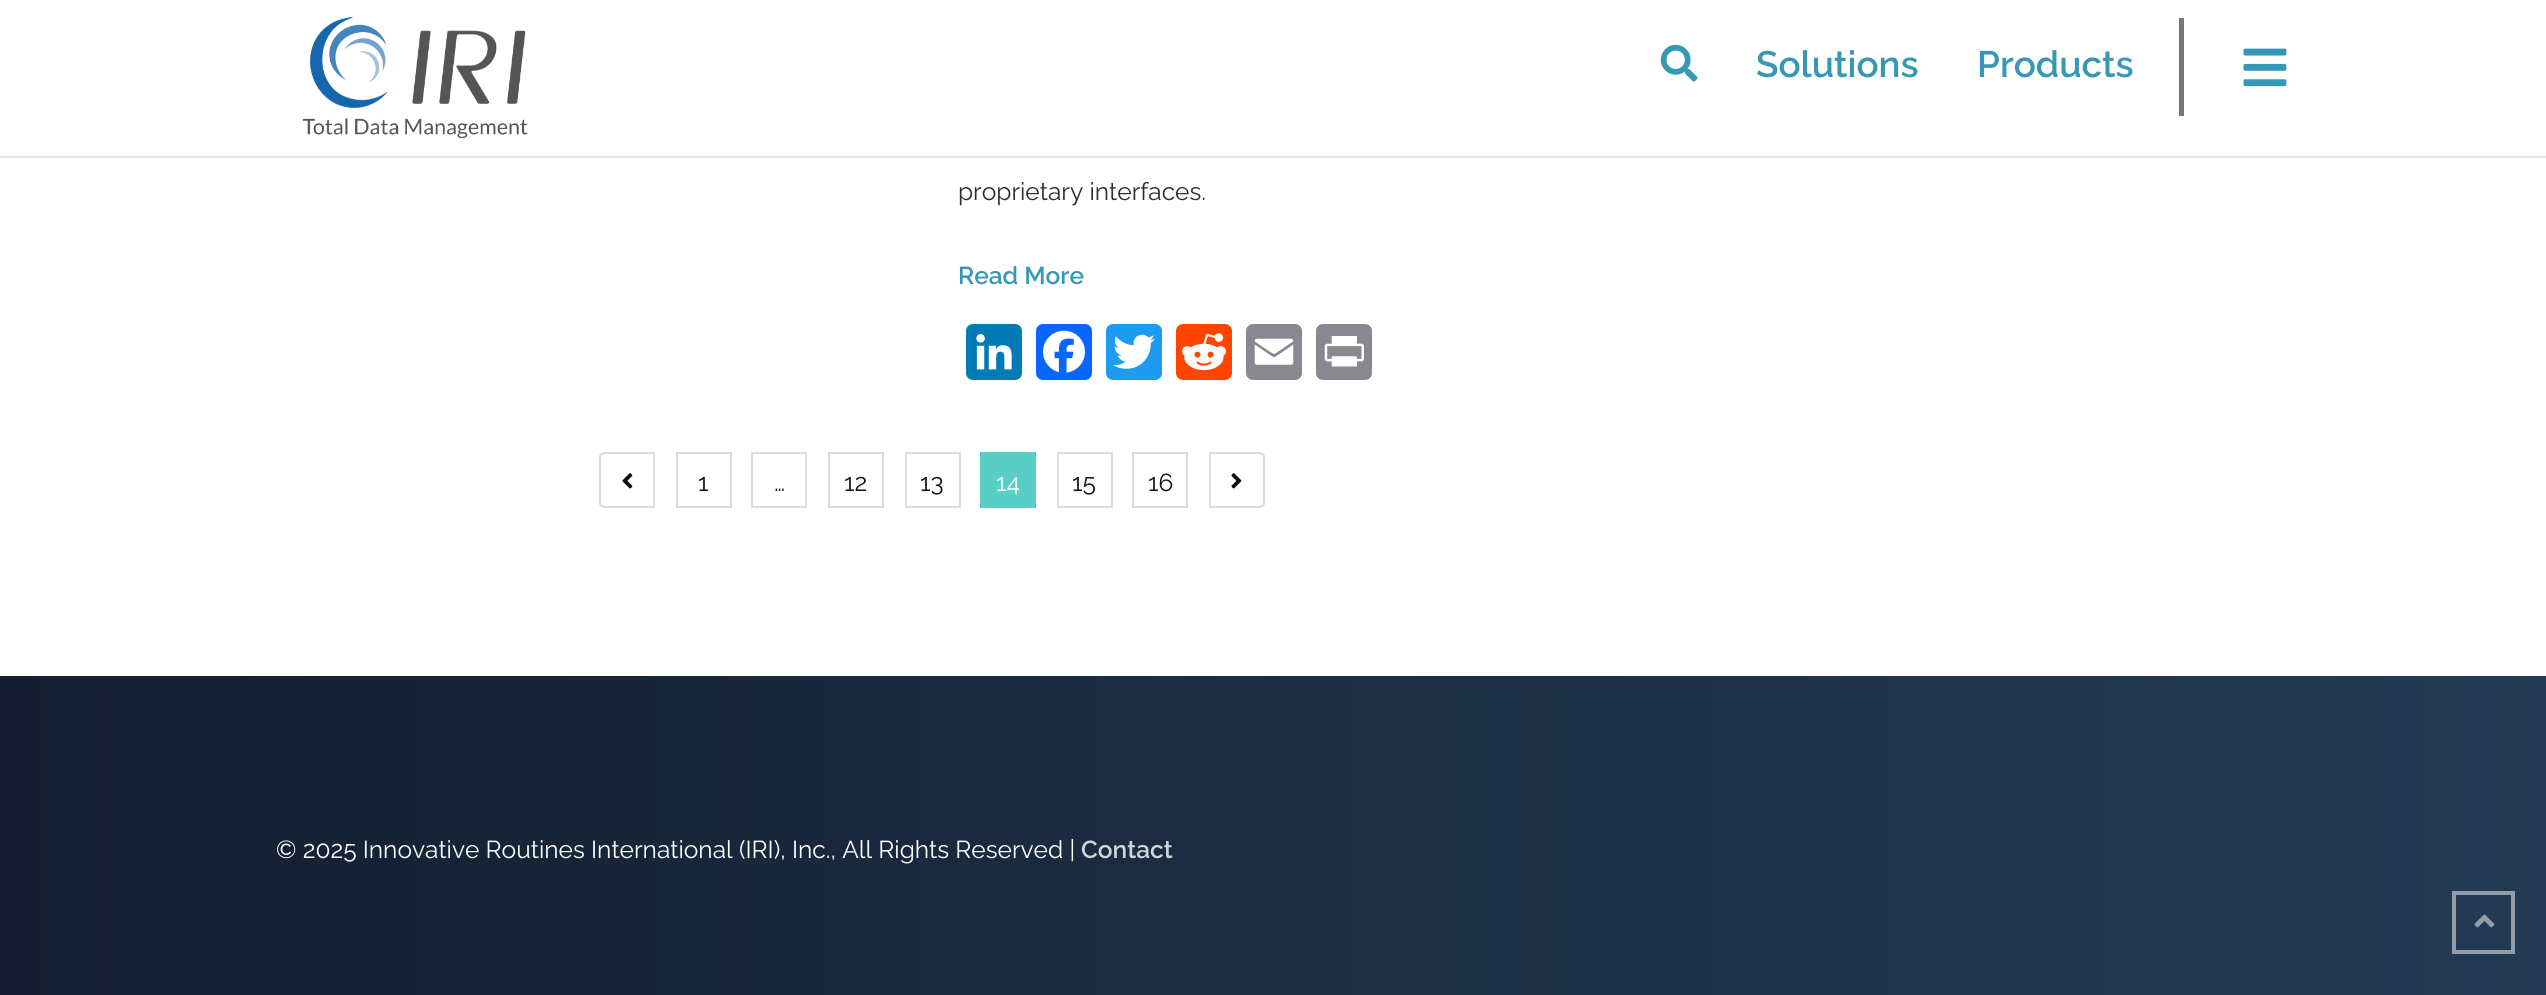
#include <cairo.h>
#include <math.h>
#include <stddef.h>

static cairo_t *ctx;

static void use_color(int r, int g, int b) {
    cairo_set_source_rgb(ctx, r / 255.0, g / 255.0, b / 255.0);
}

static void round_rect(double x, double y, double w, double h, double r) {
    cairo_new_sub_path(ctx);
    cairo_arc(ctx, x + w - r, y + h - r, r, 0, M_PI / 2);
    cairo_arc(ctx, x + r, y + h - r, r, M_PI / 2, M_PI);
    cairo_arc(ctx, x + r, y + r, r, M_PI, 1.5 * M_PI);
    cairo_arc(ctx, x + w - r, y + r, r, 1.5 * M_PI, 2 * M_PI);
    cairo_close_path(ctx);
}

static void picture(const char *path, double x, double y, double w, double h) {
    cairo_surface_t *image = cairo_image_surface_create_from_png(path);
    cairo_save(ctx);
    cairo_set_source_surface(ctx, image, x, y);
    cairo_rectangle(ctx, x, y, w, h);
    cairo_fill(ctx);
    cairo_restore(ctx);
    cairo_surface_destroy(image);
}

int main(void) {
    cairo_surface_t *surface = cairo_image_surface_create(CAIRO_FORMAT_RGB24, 2546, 995);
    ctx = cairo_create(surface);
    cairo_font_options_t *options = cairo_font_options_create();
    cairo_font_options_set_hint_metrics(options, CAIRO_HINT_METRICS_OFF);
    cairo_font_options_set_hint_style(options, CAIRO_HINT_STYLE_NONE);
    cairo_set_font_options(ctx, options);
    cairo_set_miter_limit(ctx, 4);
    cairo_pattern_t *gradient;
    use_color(255, 255, 255);
    cairo_paint(ctx);
    use_color(230, 230, 230);
    cairo_rectangle(ctx, 0, 156, 2546, 2);
    cairo_fill(ctx);
    picture("img1.png", 302, 17, 226, 121);
    use_color(119, 119, 119);
    cairo_rectangle(ctx, 2179, 18, 5, 98);
    cairo_fill(ctx);
    picture("img2.png", 1660, 44, 38, 38);
    cairo_select_font_face(ctx, "Raleway SemiBold", CAIRO_FONT_SLANT_NORMAL, CAIRO_FONT_WEIGHT_NORMAL);
    cairo_set_font_size(ctx, 36.75);
    use_color(55, 152, 182);
    cairo_move_to(ctx, 1756, 77);
    cairo_show_text(ctx, "Solutions");
    cairo_move_to(ctx, 1977, 77);
    cairo_show_text(ctx, "Products");
    picture("img3.png", 2243, 48, 44, 39);
    cairo_select_font_face(ctx, "Raleway", CAIRO_FONT_SLANT_NORMAL, CAIRO_FONT_WEIGHT_NORMAL);
    cairo_set_font_size(ctx, 24.5);
    use_color(41, 46, 48);
    cairo_move_to(ctx, 958, 200);
    cairo_show_text(ctx, "proprietary interfaces.");
    cairo_select_font_face(ctx, "Raleway SemiBold", CAIRO_FONT_SLANT_NORMAL, CAIRO_FONT_WEIGHT_NORMAL);
    use_color(55, 152, 182);
    cairo_move_to(ctx, 958, 284);
    cairo_show_text(ctx, "Read More");
    use_color(0, 123, 181);
    round_rect(966, 324, 56, 56, 7);
    cairo_fill(ctx);
    picture("img4.png", 976, 334, 36, 36);
    use_color(8, 102, 255);
    round_rect(1036, 324, 56, 56, 7);
    cairo_fill(ctx);
    picture("img5.png", 1043, 330, 42, 43);
    use_color(29, 155, 240);
    round_rect(1106, 324, 56, 56, 7);
    cairo_fill(ctx);
    picture("img6.png", 1113, 334, 42, 35);
    use_color(255, 69, 0);
    round_rect(1176, 324, 56, 56, 7);
    cairo_fill(ctx);
    picture("img7.png", 1182, 333, 44, 38);
    use_color(136, 137, 144);
    round_rect(1246, 324, 56, 56, 7);
    cairo_fill(ctx);
    picture("img8.png", 1254, 338, 40, 27);
    round_rect(1316, 324, 56, 56, 7);
    cairo_fill(ctx);
    picture("img9.png", 1324, 336, 40, 31);
    cairo_new_path(ctx);
    cairo_move_to(ctx, 604, 453);
    cairo_line_to(ctx, 654, 453);
    cairo_line_to(ctx, 654, 507);
    cairo_line_to(ctx, 604, 507);
    cairo_curve_to(ctx, 602, 507, 600, 505, 600, 503);
    cairo_line_to(ctx, 600, 457);
    cairo_curve_to(ctx, 600, 455, 602, 453, 604, 453);
    cairo_close_path(ctx);
    use_color(221, 221, 221);
    cairo_stroke(ctx);
    picture("img10.png", 622, 473, 11, 16);
    cairo_rectangle(ctx, 677, 453, 54, 54);
    cairo_stroke(ctx);
    cairo_select_font_face(ctx, "Raleway", CAIRO_FONT_SLANT_NORMAL, CAIRO_FONT_WEIGHT_NORMAL);
    use_color(14, 16, 21);
    cairo_move_to(ctx, 698, 491);
    cairo_show_text(ctx, "1");
    cairo_rectangle(ctx, 752, 453, 54, 54);
    use_color(221, 221, 221);
    cairo_stroke(ctx);
    use_color(14, 16, 21);
    cairo_move_to(ctx, 774, 491);
    cairo_show_text(ctx, "…");
    cairo_rectangle(ctx, 829, 453, 54, 54);
    use_color(221, 221, 221);
    cairo_stroke(ctx);
    use_color(14, 16, 21);
    cairo_move_to(ctx, 844, 491);
    cairo_show_text(ctx, "12");
    cairo_rectangle(ctx, 906, 453, 54, 54);
    use_color(221, 221, 221);
    cairo_stroke(ctx);
    use_color(14, 16, 21);
    cairo_move_to(ctx, 920, 491);
    cairo_show_text(ctx, "13");
    use_color(89, 206, 197);
    cairo_rectangle(ctx, 980, 452, 56, 56);
    cairo_fill(ctx);
    use_color(255, 255, 255);
    cairo_move_to(ctx, 996, 491);
    cairo_show_text(ctx, "14");
    cairo_rectangle(ctx, 1058, 453, 54, 54);
    use_color(221, 221, 221);
    cairo_stroke(ctx);
    use_color(14, 16, 21);
    cairo_move_to(ctx, 1072, 491);
    cairo_show_text(ctx, "15");
    cairo_rectangle(ctx, 1133, 453, 54, 54);
    use_color(221, 221, 221);
    cairo_stroke(ctx);
    use_color(14, 16, 21);
    cairo_move_to(ctx, 1148, 491);
    cairo_show_text(ctx, "16");
    cairo_new_path(ctx);
    cairo_move_to(ctx, 1210, 453);
    cairo_line_to(ctx, 1260, 453);
    cairo_curve_to(ctx, 1262, 453, 1264, 455, 1264, 457);
    cairo_line_to(ctx, 1264, 503);
    cairo_curve_to(ctx, 1264, 505, 1262, 507, 1260, 507);
    cairo_line_to(ctx, 1210, 507);
    cairo_close_path(ctx);
    use_color(221, 221, 221);
    cairo_stroke(ctx);
    picture("img11.png", 1231, 473, 11, 16);
    gradient = cairo_pattern_create_linear(2546, 836, 0, 836);
    cairo_pattern_add_color_stop_rgba(gradient, 0, 0.141, 0.231, 0.333, 1);
    cairo_pattern_add_color_stop_rgba(gradient, 1, 0.078, 0.118, 0.188, 1);
    cairo_set_source(ctx, gradient);
    cairo_pattern_destroy(gradient);
    cairo_rectangle(ctx, 0, 676, 2546, 319);
    cairo_fill(ctx);
    use_color(255, 255, 255);
    cairo_move_to(ctx, 276, 858);
    cairo_show_text(ctx, "© 2025 Innovative Routines International (IRI), Inc., All Rights Reserved |");
    cairo_select_font_face(ctx, "Raleway SemiBold", CAIRO_FONT_SLANT_NORMAL, CAIRO_FONT_WEIGHT_NORMAL);
    use_color(209, 213, 217);
    cairo_move_to(ctx, 1081, 858);
    cairo_show_text(ctx, "Contact");
    cairo_rectangle(ctx, 2454, 893, 59, 59);
    use_color(145, 157, 170);
    cairo_set_line_width(ctx, 4);
    cairo_stroke(ctx);
    picture("img12.png", 2474, 914, 21, 14);
    cairo_surface_write_to_png(surface, "result.png");
    cairo_font_options_destroy(options);
    cairo_destroy(ctx);
    cairo_surface_destroy(surface);
    return 0;
}
